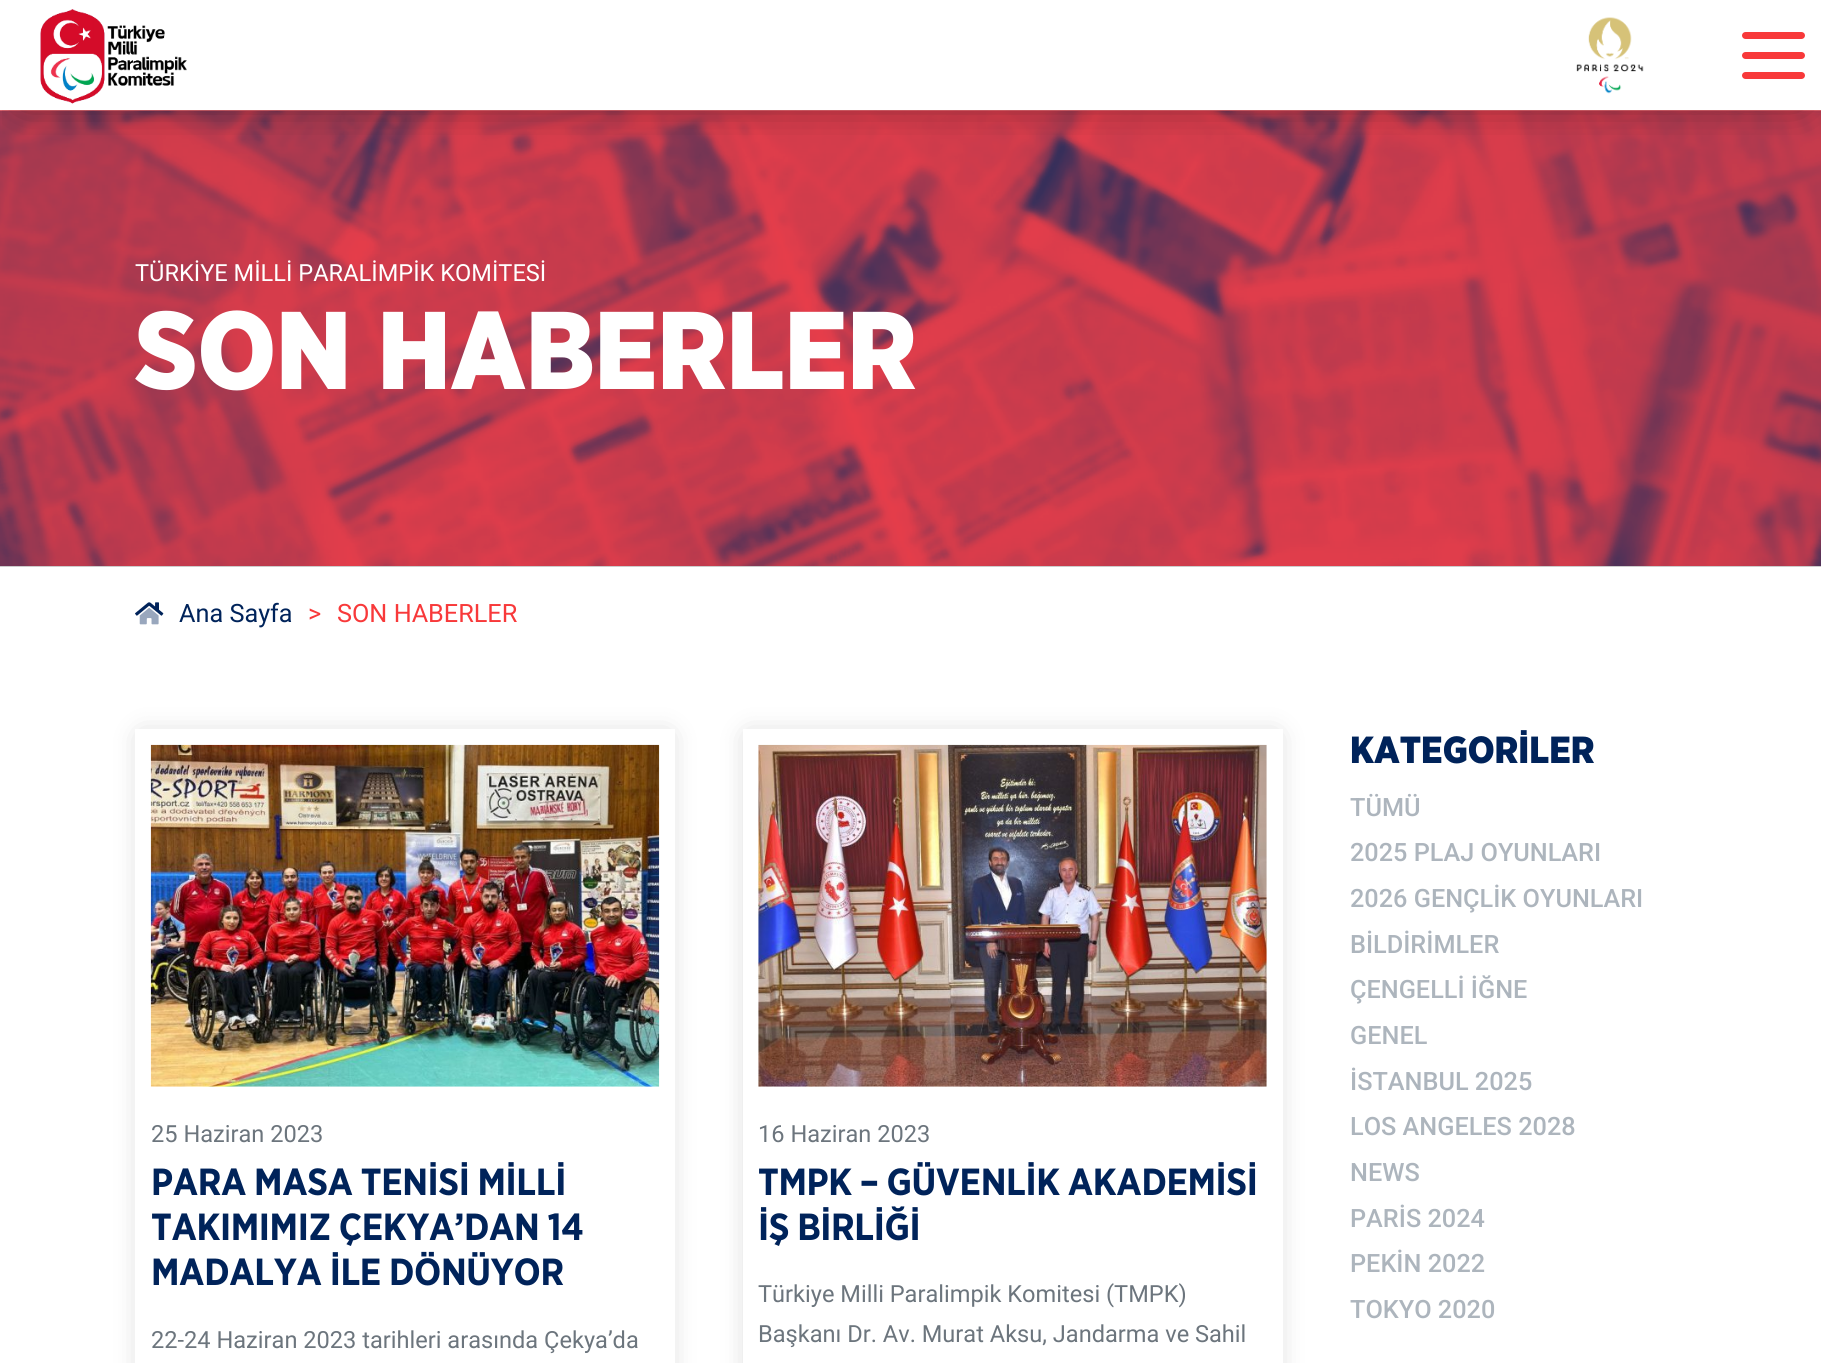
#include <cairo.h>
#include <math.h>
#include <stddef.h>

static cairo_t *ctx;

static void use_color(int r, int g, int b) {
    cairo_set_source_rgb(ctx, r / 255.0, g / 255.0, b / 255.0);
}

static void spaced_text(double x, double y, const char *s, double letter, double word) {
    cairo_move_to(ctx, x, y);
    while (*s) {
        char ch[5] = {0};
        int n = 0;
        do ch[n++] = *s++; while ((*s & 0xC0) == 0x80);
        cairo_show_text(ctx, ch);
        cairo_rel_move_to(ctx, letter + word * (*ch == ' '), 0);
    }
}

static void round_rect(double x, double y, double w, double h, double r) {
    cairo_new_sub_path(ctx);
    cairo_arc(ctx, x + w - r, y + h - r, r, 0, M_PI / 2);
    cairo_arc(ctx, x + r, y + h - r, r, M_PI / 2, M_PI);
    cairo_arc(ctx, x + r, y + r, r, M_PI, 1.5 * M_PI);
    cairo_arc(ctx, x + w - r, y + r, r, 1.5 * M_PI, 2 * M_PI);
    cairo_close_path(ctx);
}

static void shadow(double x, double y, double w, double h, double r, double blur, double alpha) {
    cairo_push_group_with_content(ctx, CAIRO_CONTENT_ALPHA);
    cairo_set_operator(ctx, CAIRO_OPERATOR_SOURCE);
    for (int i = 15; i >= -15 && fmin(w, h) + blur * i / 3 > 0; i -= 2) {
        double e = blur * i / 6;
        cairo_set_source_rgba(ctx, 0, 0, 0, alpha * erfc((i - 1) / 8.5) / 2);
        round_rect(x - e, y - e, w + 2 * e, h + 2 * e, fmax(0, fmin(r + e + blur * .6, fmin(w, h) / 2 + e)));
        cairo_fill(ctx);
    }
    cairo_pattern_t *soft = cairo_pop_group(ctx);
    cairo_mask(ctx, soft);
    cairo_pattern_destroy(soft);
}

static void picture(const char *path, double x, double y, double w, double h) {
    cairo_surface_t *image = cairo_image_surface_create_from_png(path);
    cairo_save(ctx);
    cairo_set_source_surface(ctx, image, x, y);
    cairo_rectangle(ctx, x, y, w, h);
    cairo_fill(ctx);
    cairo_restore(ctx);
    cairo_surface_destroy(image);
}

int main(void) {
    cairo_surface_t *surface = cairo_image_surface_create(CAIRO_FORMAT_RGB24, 1821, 1363);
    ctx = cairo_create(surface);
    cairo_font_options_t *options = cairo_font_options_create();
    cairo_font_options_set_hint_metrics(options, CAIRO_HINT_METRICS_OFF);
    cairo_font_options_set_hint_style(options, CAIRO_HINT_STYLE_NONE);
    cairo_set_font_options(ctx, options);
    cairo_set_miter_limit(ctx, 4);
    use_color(255, 255, 255);
    cairo_paint(ctx);
    use_color(204, 204, 204);
    cairo_rectangle(ctx, 0, 110, 1821, 457);
    cairo_fill(ctx);
    picture("img3.png", 0, 110, 1821, 456);
    cairo_save(ctx);
    cairo_rectangle(ctx, 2, 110, 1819, 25);
    cairo_clip(ctx);
    use_color(0, 0, 0);
    shadow(23, 32, 1777, 65, 0, 21.5, 0.5);
    cairo_restore(ctx);
    picture("img1.png", 40, 9, 147, 95);
    picture("img2.png", 1576, 17, 68, 77);
    use_color(248, 57, 58);
    round_rect(1742, 32, 63, 7, 3.5);
    cairo_fill(ctx);
    round_rect(1742, 52, 63, 7, 3.5);
    cairo_fill(ctx);
    round_rect(1742, 72, 63, 7, 3.5);
    cairo_fill(ctx);
    cairo_select_font_face(ctx, "Roboto", CAIRO_FONT_SLANT_NORMAL, CAIRO_FONT_WEIGHT_NORMAL);
    cairo_set_font_size(ctx, 23.6);
    use_color(255, 255, 255);
    cairo_move_to(ctx, 135, 281);
    cairo_show_text(ctx, "TÜRKİYE MİLLİ PARALİMPİK KOMİTESİ");
    cairo_select_font_face(ctx, "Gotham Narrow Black", CAIRO_FONT_SLANT_NORMAL, CAIRO_FONT_WEIGHT_NORMAL);
    cairo_set_font_size(ctx, 110.25);
    cairo_move_to(ctx, 135, 389);
    cairo_show_text(ctx, "SON HABERLER");
    picture("img4.png", 135, 602, 29, 23);
    cairo_select_font_face(ctx, "Roboto", CAIRO_FONT_SLANT_NORMAL, CAIRO_FONT_WEIGHT_NORMAL);
    cairo_set_font_size(ctx, 25.25);
    use_color(0, 35, 90);
    cairo_move_to(ctx, 179, 622);
    cairo_show_text(ctx, "Ana Sayfa");
    use_color(248, 57, 58);
    cairo_move_to(ctx, 308, 622);
    cairo_show_text(ctx, ">");
    cairo_move_to(ctx, 337, 622);
    cairo_show_text(ctx, "SON HABERLER");
    cairo_save(ctx);
    cairo_set_fill_rule(ctx, CAIRO_FILL_RULE_EVEN_ODD);
    cairo_new_path(ctx);
    cairo_move_to(ctx, 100, 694);
    cairo_line_to(ctx, 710, 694);
    cairo_line_to(ctx, 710, 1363);
    cairo_line_to(ctx, 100, 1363);
    cairo_close_path(ctx);
    cairo_move_to(ctx, 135, 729);
    cairo_line_to(ctx, 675, 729);
    cairo_line_to(ctx, 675, 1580);
    cairo_line_to(ctx, 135, 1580);
    cairo_close_path(ctx);
    cairo_clip(ctx);
    use_color(0, 0, 0);
    shadow(142, 736, 526, 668, 0, 13.5, 0.2);
    cairo_restore(ctx);
    picture("img5.png", 150, 744, 510, 343);
    cairo_set_font_size(ctx, 23.6);
    use_color(108, 117, 125);
    cairo_move_to(ctx, 151, 1142);
    cairo_show_text(ctx, "25 Haziran 2023");
    cairo_select_font_face(ctx, "Gotham Narrow", CAIRO_FONT_SLANT_NORMAL, CAIRO_FONT_WEIGHT_BOLD);
    cairo_set_font_size(ctx, 37.75);
    use_color(0, 35, 90);
    spaced_text(151, 1195, "PARA MASA TENİSİ MİLLİ", -0.4, 0);
    spaced_text(151, 1240, "TAKIMIMIZ ÇEKYA’DAN 14", -0.4, 0);
    spaced_text(151, 1285, "MADALYA İLE DÖNÜYOR", -0.4, 0);
    cairo_select_font_face(ctx, "Roboto", CAIRO_FONT_SLANT_NORMAL, CAIRO_FONT_WEIGHT_NORMAL);
    cairo_set_font_size(ctx, 23.6);
    use_color(108, 117, 125);
    cairo_move_to(ctx, 151, 1348);
    cairo_show_text(ctx, "22-24 Haziran 2023 tarihleri arasında Çekya’da");
    cairo_save(ctx);
    cairo_set_fill_rule(ctx, CAIRO_FILL_RULE_EVEN_ODD);
    cairo_new_path(ctx);
    cairo_move_to(ctx, 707, 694);
    cairo_line_to(ctx, 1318, 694);
    cairo_line_to(ctx, 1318, 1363);
    cairo_line_to(ctx, 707, 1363);
    cairo_close_path(ctx);
    cairo_move_to(ctx, 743, 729);
    cairo_line_to(ctx, 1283, 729);
    cairo_line_to(ctx, 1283, 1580);
    cairo_line_to(ctx, 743, 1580);
    cairo_close_path(ctx);
    cairo_clip(ctx);
    use_color(0, 0, 0);
    shadow(749, 736, 527, 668, 0, 13.5, 0.2);
    cairo_restore(ctx);
    picture("img6.png", 758, 744, 509, 343);
    cairo_move_to(ctx, 758, 1142);
    cairo_show_text(ctx, "16 Haziran 2023");
    cairo_select_font_face(ctx, "Gotham Narrow", CAIRO_FONT_SLANT_NORMAL, CAIRO_FONT_WEIGHT_BOLD);
    cairo_set_font_size(ctx, 37.75);
    use_color(0, 35, 90);
    spaced_text(758, 1195, "TMPK – GÜVENLİK AKADEMİSİ", -0.4, 0);
    spaced_text(758, 1240, "İŞ BİRLİĞİ", -0.4, 0);
    cairo_select_font_face(ctx, "Roboto", CAIRO_FONT_SLANT_NORMAL, CAIRO_FONT_WEIGHT_NORMAL);
    cairo_set_font_size(ctx, 23.6);
    use_color(108, 117, 125);
    cairo_move_to(ctx, 758, 1302);
    cairo_show_text(ctx, "Türkiye Milli Paralimpik Komitesi (TMPK)");
    cairo_move_to(ctx, 758, 1342);
    cairo_show_text(ctx, "Başkanı Dr. Av. Murat Aksu, Jandarma ve Sahil");
    cairo_select_font_face(ctx, "Gotham Narrow Black", CAIRO_FONT_SLANT_NORMAL, CAIRO_FONT_WEIGHT_NORMAL);
    cairo_set_font_size(ctx, 37.75);
    use_color(0, 35, 90);
    cairo_move_to(ctx, 1350, 763);
    cairo_show_text(ctx, "KATEGORİLER");
    cairo_select_font_face(ctx, "Roboto Medium", CAIRO_FONT_SLANT_NORMAL, CAIRO_FONT_WEIGHT_NORMAL);
    cairo_set_font_size(ctx, 25.25);
    use_color(173, 181, 189);
    cairo_move_to(ctx, 1350, 816);
    cairo_show_text(ctx, "TÜMÜ");
    cairo_move_to(ctx, 1350, 861);
    cairo_show_text(ctx, "2025 PLAJ OYUNLARI");
    cairo_move_to(ctx, 1350, 907);
    cairo_show_text(ctx, "2026 GENÇLİK OYUNLARI");
    cairo_move_to(ctx, 1350, 953);
    cairo_show_text(ctx, "BİLDİRİMLER");
    cairo_move_to(ctx, 1350, 998);
    cairo_show_text(ctx, "ÇENGELLİ İĞNE");
    cairo_move_to(ctx, 1350, 1044);
    cairo_show_text(ctx, "GENEL");
    cairo_move_to(ctx, 1350, 1090);
    cairo_show_text(ctx, "İSTANBUL 2025");
    cairo_move_to(ctx, 1350, 1135);
    cairo_show_text(ctx, "LOS ANGELES 2028");
    cairo_move_to(ctx, 1350, 1181);
    cairo_show_text(ctx, "NEWS");
    cairo_move_to(ctx, 1350, 1227);
    cairo_show_text(ctx, "PARİS 2024");
    cairo_move_to(ctx, 1350, 1272);
    cairo_show_text(ctx, "PEKİN 2022");
    cairo_move_to(ctx, 1350, 1318);
    cairo_show_text(ctx, "TOKYO 2020");
    cairo_surface_write_to_png(surface, "result.png");
    cairo_font_options_destroy(options);
    cairo_destroy(ctx);
    cairo_surface_destroy(surface);
    return 0;
}
